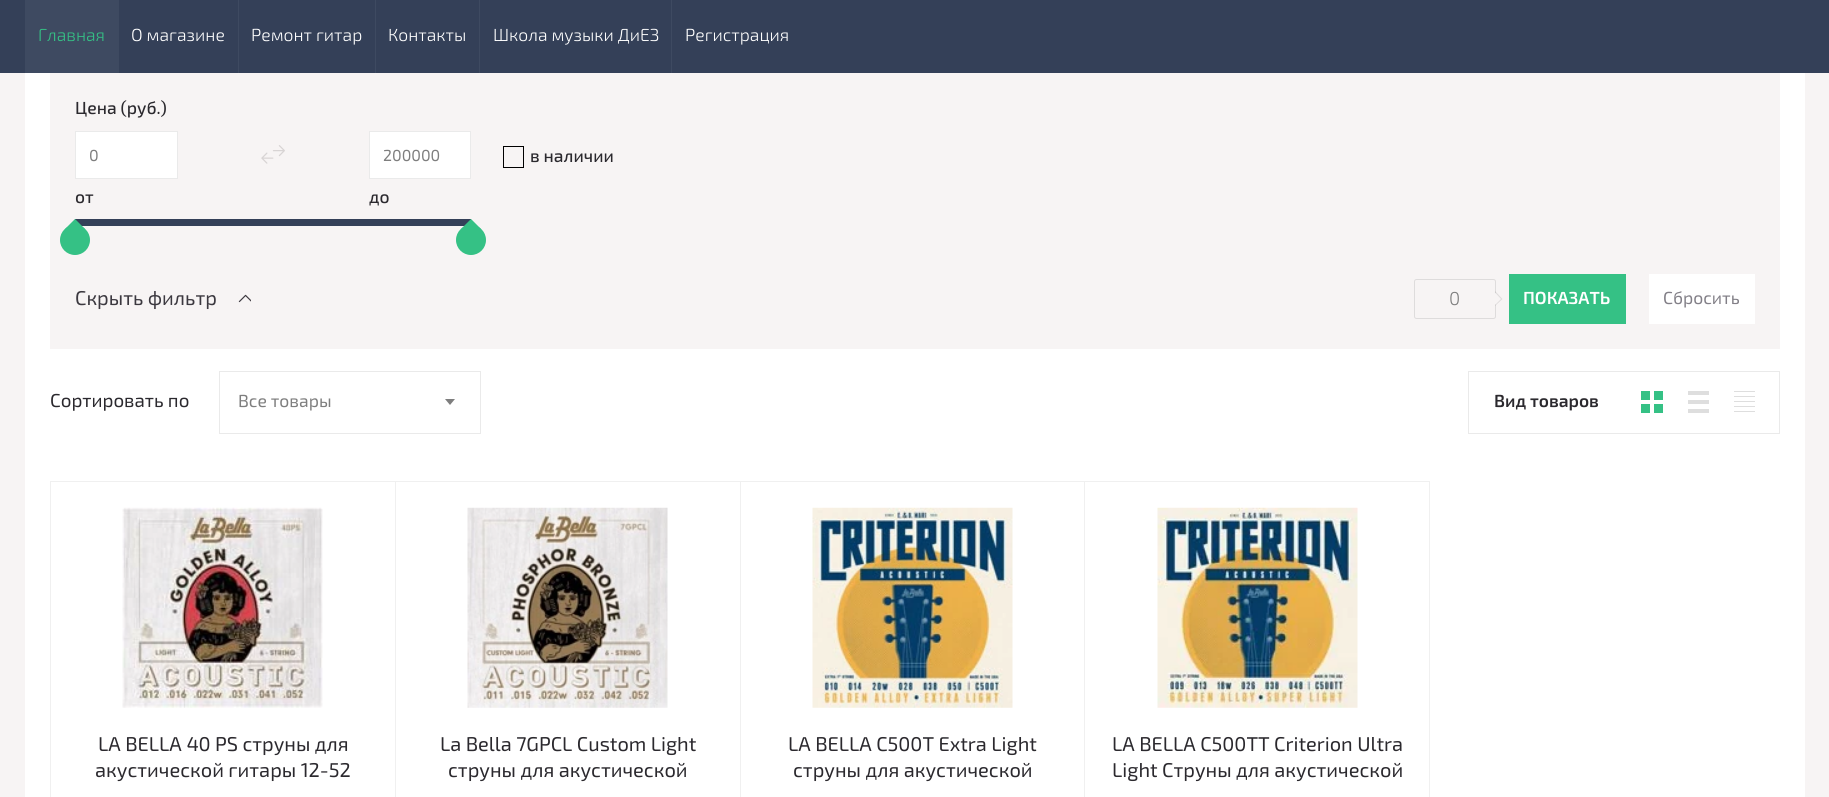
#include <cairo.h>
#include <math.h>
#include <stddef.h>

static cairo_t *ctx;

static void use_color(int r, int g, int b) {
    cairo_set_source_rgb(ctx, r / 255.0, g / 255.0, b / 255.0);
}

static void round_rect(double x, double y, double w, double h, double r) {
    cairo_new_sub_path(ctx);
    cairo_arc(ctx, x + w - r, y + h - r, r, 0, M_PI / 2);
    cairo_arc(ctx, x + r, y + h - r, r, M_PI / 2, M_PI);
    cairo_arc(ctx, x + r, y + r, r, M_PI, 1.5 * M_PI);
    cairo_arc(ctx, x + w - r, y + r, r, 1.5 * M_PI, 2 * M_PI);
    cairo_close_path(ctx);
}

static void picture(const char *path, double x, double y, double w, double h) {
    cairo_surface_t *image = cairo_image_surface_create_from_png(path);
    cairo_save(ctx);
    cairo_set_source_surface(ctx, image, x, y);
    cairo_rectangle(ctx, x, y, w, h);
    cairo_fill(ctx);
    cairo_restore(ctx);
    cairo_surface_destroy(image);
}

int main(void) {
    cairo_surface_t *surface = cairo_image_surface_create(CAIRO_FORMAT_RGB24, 1829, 797);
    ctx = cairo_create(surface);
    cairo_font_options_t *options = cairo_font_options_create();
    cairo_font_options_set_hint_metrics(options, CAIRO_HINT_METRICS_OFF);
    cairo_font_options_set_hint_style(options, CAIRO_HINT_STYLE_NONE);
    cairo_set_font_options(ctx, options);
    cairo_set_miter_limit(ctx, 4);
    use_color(247, 244, 244);
    cairo_paint(ctx);
    use_color(52, 64, 88);
    cairo_rectangle(ctx, 0, 0, 1829, 73);
    cairo_fill(ctx);
    use_color(62, 74, 97);
    cairo_rectangle(ctx, 25, 0, 94, 73);
    cairo_fill(ctx);
    cairo_select_font_face(ctx, "Exo 2 Light", CAIRO_FONT_SLANT_NORMAL, CAIRO_FONT_WEIGHT_NORMAL);
    cairo_set_font_size(ctx, 17.5);
    use_color(53, 193, 133);
    cairo_move_to(ctx, 38, 41);
    cairo_show_text(ctx, "Главная");
    use_color(255, 255, 255);
    cairo_move_to(ctx, 131, 41);
    cairo_show_text(ctx, "О магазине");
    use_color(62, 74, 97);
    cairo_rectangle(ctx, 238, 0, 1, 73);
    cairo_fill(ctx);
    use_color(255, 255, 255);
    cairo_move_to(ctx, 251, 41);
    cairo_show_text(ctx, "Ремонт гитар");
    use_color(62, 74, 97);
    cairo_rectangle(ctx, 375, 0, 1, 73);
    cairo_fill(ctx);
    use_color(255, 255, 255);
    cairo_move_to(ctx, 388, 41);
    cairo_show_text(ctx, "Контакты");
    use_color(62, 74, 97);
    cairo_rectangle(ctx, 479, 0, 1, 73);
    cairo_fill(ctx);
    use_color(255, 255, 255);
    cairo_move_to(ctx, 493, 41);
    cairo_show_text(ctx, "Школа музыки ДиЕЗ");
    use_color(62, 74, 97);
    cairo_rectangle(ctx, 671, 0, 1, 73);
    cairo_fill(ctx);
    use_color(255, 255, 255);
    cairo_move_to(ctx, 685, 41);
    cairo_show_text(ctx, "Регистрация");
    cairo_rectangle(ctx, 25, 73, 1780, 724);
    cairo_fill(ctx);
    use_color(247, 244, 244);
    cairo_rectangle(ctx, 50, 73, 1730, 276);
    cairo_fill(ctx);
    cairo_select_font_face(ctx, "Exo 2 Medium", CAIRO_FONT_SLANT_NORMAL, CAIRO_FONT_WEIGHT_NORMAL);
    use_color(43, 41, 46);
    cairo_move_to(ctx, 75, 114);
    cairo_show_text(ctx, "Цена (руб.)");
    use_color(255, 255, 255);
    cairo_rectangle(ctx, 75.5, 131.5, 102, 47);
    cairo_fill_preserve(ctx);
    use_color(234, 234, 234);
    cairo_set_line_width(ctx, 1);
    cairo_stroke(ctx);
    cairo_select_font_face(ctx, "Exo 2", CAIRO_FONT_SLANT_NORMAL, CAIRO_FONT_WEIGHT_NORMAL);
    cairo_set_font_size(ctx, 16);
    use_color(126, 126, 126);
    cairo_move_to(ctx, 89, 161);
    cairo_show_text(ctx, "0");
    picture("img1.png", 261, 145, 24, 19);
    use_color(255, 255, 255);
    cairo_rectangle(ctx, 369.5, 131.5, 101, 47);
    cairo_fill_preserve(ctx);
    use_color(234, 234, 234);
    cairo_stroke(ctx);
    use_color(126, 126, 126);
    cairo_move_to(ctx, 383, 161);
    cairo_show_text(ctx, "200000");
    cairo_select_font_face(ctx, "Exo 2 Medium", CAIRO_FONT_SLANT_NORMAL, CAIRO_FONT_WEIGHT_NORMAL);
    cairo_set_font_size(ctx, 17.5);
    use_color(43, 41, 46);
    cairo_move_to(ctx, 75, 203);
    cairo_show_text(ctx, "от");
    cairo_move_to(ctx, 369, 203);
    cairo_show_text(ctx, "до");
    use_color(52, 64, 88);
    cairo_rectangle(ctx, 75, 219, 396, 7);
    cairo_fill(ctx);
    use_color(53, 193, 133);
    cairo_arc(ctx, 75, 240, 15, 0, 2 * M_PI);
    cairo_fill(ctx);
    cairo_new_path(ctx);
    cairo_move_to(ctx, 85, 229);
    cairo_line_to(ctx, 65, 229);
    cairo_line_to(ctx, 75, 219);
    cairo_close_path(ctx);
    cairo_fill(ctx);
    cairo_arc(ctx, 471, 240, 15, 0, 2 * M_PI);
    cairo_fill(ctx);
    cairo_new_path(ctx);
    cairo_move_to(ctx, 481, 229);
    cairo_line_to(ctx, 461, 229);
    cairo_line_to(ctx, 471, 219);
    cairo_close_path(ctx);
    cairo_fill(ctx);
    cairo_rectangle(ctx, 503.5, 146.5, 20, 21);
    use_color(0, 0, 0);
    cairo_stroke(ctx);
    use_color(43, 41, 46);
    cairo_move_to(ctx, 530, 162);
    cairo_show_text(ctx, "в наличии");
    cairo_select_font_face(ctx, "Exo 2", CAIRO_FONT_SLANT_NORMAL, CAIRO_FONT_WEIGHT_NORMAL);
    cairo_set_font_size(ctx, 20);
    use_color(60, 57, 64);
    cairo_move_to(ctx, 75, 305);
    cairo_show_text(ctx, "Скрыть фильтр");
    picture("img2.png", 238, 294, 13, 9);
    round_rect(1414.5, 279.5, 81, 39, 2);
    use_color(222, 220, 220);
    cairo_stroke(ctx);
    cairo_select_font_face(ctx, "Exo 2 Light", CAIRO_FONT_SLANT_NORMAL, CAIRO_FONT_WEIGHT_NORMAL);
    cairo_set_font_size(ctx, 18.75);
    use_color(126, 126, 126);
    cairo_move_to(ctx, 1449, 305);
    cairo_show_text(ctx, "0");
    cairo_set_source_rgba(ctx, 0, 0, 0, 0.1);
    cairo_new_path(ctx);
    cairo_move_to(ctx, 1495, 306);
    cairo_line_to(ctx, 1495, 291);
    cairo_line_to(ctx, 1502.5, 299);
    cairo_close_path(ctx);
    cairo_fill(ctx);
    use_color(247, 244, 244);
    cairo_new_path(ctx);
    cairo_move_to(ctx, 1495, 305);
    cairo_line_to(ctx, 1495, 292.5);
    cairo_line_to(ctx, 1501, 299);
    cairo_close_path(ctx);
    cairo_fill(ctx);
    use_color(53, 193, 133);
    cairo_rectangle(ctx, 1509, 274, 117, 50);
    cairo_fill(ctx);
    cairo_select_font_face(ctx, "Exo 2 SemiBold", CAIRO_FONT_SLANT_NORMAL, CAIRO_FONT_WEIGHT_NORMAL);
    cairo_set_font_size(ctx, 17.5);
    use_color(255, 255, 255);
    cairo_move_to(ctx, 1523, 304);
    cairo_show_text(ctx, "ПОКАЗАТЬ");
    cairo_rectangle(ctx, 1649, 274, 106, 50);
    cairo_fill(ctx);
    cairo_select_font_face(ctx, "Exo 2", CAIRO_FONT_SLANT_NORMAL, CAIRO_FONT_WEIGHT_NORMAL);
    use_color(130, 127, 135);
    cairo_move_to(ctx, 1663, 304);
    cairo_show_text(ctx, "Сбросить");
    cairo_set_font_size(ctx, 18.75);
    use_color(43, 41, 46);
    cairo_move_to(ctx, 50, 407);
    cairo_show_text(ctx, "Сортировать по");
    cairo_rectangle(ctx, 219.5, 371.5, 261, 62);
    use_color(234, 234, 234);
    cairo_stroke(ctx);
    cairo_set_font_size(ctx, 17.5);
    use_color(126, 126, 126);
    cairo_move_to(ctx, 238, 407);
    cairo_show_text(ctx, "Все товары");
    cairo_new_path(ctx);
    cairo_move_to(ctx, 445, 399);
    cairo_line_to(ctx, 455, 399);
    cairo_line_to(ctx, 450, 405);
    cairo_close_path(ctx);
    cairo_fill(ctx);
    cairo_rectangle(ctx, 1468.5, 371.5, 311, 62);
    use_color(234, 234, 234);
    cairo_stroke(ctx);
    cairo_select_font_face(ctx, "Exo 2 SemiBold", CAIRO_FONT_SLANT_NORMAL, CAIRO_FONT_WEIGHT_NORMAL);
    use_color(43, 41, 46);
    cairo_move_to(ctx, 1494, 407);
    cairo_show_text(ctx, "Вид товаров");
    use_color(53, 193, 133);
    cairo_rectangle(ctx, 1641, 391, 9, 9);
    cairo_fill(ctx);
    cairo_rectangle(ctx, 1641, 404, 9, 9);
    cairo_fill(ctx);
    cairo_rectangle(ctx, 1654, 391, 9, 9);
    cairo_fill(ctx);
    cairo_rectangle(ctx, 1654, 404, 9, 9);
    cairo_fill(ctx);
    use_color(222, 222, 222);
    cairo_rectangle(ctx, 1688, 391, 21, 4);
    cairo_fill(ctx);
    cairo_rectangle(ctx, 1688, 400, 21, 4);
    cairo_fill(ctx);
    cairo_rectangle(ctx, 1688, 409, 21, 4);
    cairo_fill(ctx);
    cairo_rectangle(ctx, 1734, 391, 21, 1);
    cairo_fill(ctx);
    cairo_rectangle(ctx, 1734, 396, 21, 1);
    cairo_fill(ctx);
    cairo_rectangle(ctx, 1734, 401, 21, 1);
    cairo_fill(ctx);
    cairo_rectangle(ctx, 1734, 406, 21, 1);
    cairo_fill(ctx);
    cairo_rectangle(ctx, 1734, 411, 21, 1);
    cairo_fill(ctx);
    cairo_rectangle(ctx, 50.5, 481.5, 345, 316);
    use_color(240, 240, 240);
    cairo_stroke(ctx);
    picture("img3.png", 122, 507, 201, 201);
    cairo_select_font_face(ctx, "Exo 2", CAIRO_FONT_SLANT_NORMAL, CAIRO_FONT_WEIGHT_NORMAL);
    cairo_set_font_size(ctx, 20);
    use_color(43, 41, 46);
    cairo_move_to(ctx, 98, 751);
    cairo_show_text(ctx, "LA BELLA 40 PS струны для");
    cairo_move_to(ctx, 95, 777);
    cairo_show_text(ctx, "акустической гитары 12-52");
    cairo_rectangle(ctx, 395.5, 481.5, 345, 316);
    use_color(240, 240, 240);
    cairo_stroke(ctx);
    picture("img4.png", 467, 507, 201, 201);
    use_color(43, 41, 46);
    cairo_move_to(ctx, 440, 751);
    cairo_show_text(ctx, "La Bella 7GPCL Custom Light");
    cairo_move_to(ctx, 448, 777);
    cairo_show_text(ctx, "струны для акустической");
    cairo_rectangle(ctx, 740.5, 481.5, 344, 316);
    use_color(240, 240, 240);
    cairo_stroke(ctx);
    picture("img5.png", 812, 507, 201, 201);
    use_color(43, 41, 46);
    cairo_move_to(ctx, 788, 751);
    cairo_show_text(ctx, "LA BELLA C500T Extra Light");
    cairo_move_to(ctx, 793, 777);
    cairo_show_text(ctx, "струны для акустической");
    cairo_rectangle(ctx, 1084.5, 481.5, 345, 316);
    use_color(240, 240, 240);
    cairo_stroke(ctx);
    picture("img6.png", 1157, 507, 201, 201);
    use_color(43, 41, 46);
    cairo_move_to(ctx, 1112, 751);
    cairo_show_text(ctx, "LA BELLA C500TT Criterion Ultra");
    cairo_move_to(ctx, 1112, 777);
    cairo_show_text(ctx, "Light Cтруны для акустической");
    cairo_surface_write_to_png(surface, "result.png");
    cairo_font_options_destroy(options);
    cairo_destroy(ctx);
    cairo_surface_destroy(surface);
    return 0;
}
